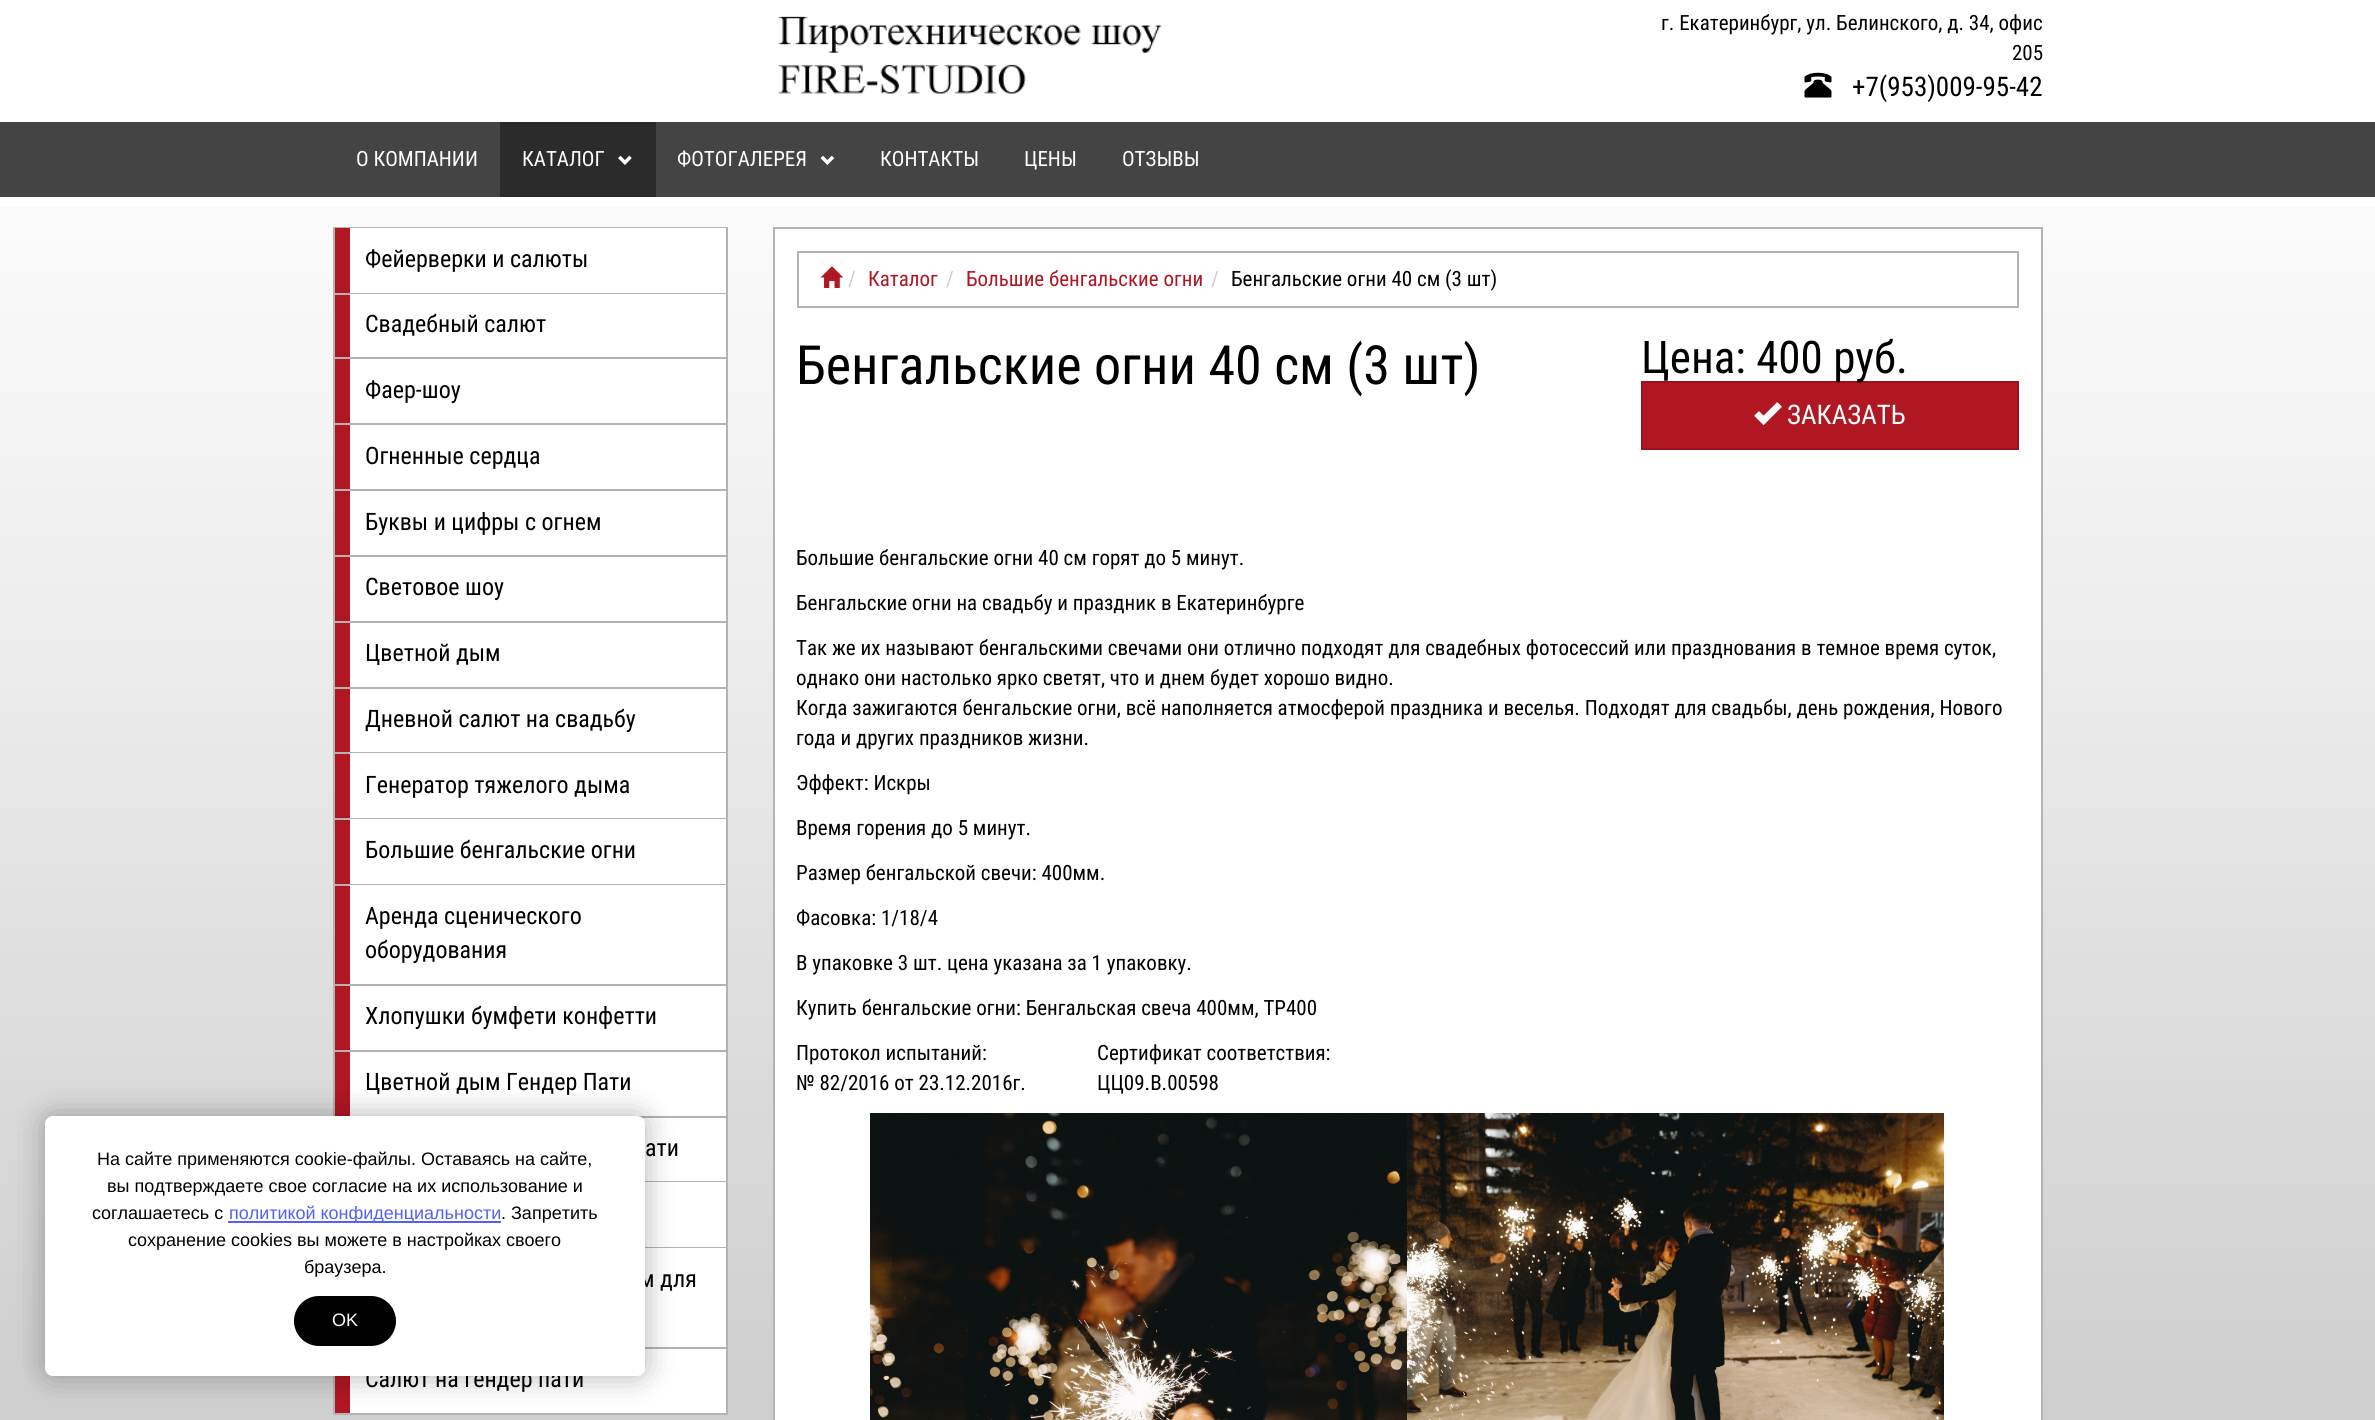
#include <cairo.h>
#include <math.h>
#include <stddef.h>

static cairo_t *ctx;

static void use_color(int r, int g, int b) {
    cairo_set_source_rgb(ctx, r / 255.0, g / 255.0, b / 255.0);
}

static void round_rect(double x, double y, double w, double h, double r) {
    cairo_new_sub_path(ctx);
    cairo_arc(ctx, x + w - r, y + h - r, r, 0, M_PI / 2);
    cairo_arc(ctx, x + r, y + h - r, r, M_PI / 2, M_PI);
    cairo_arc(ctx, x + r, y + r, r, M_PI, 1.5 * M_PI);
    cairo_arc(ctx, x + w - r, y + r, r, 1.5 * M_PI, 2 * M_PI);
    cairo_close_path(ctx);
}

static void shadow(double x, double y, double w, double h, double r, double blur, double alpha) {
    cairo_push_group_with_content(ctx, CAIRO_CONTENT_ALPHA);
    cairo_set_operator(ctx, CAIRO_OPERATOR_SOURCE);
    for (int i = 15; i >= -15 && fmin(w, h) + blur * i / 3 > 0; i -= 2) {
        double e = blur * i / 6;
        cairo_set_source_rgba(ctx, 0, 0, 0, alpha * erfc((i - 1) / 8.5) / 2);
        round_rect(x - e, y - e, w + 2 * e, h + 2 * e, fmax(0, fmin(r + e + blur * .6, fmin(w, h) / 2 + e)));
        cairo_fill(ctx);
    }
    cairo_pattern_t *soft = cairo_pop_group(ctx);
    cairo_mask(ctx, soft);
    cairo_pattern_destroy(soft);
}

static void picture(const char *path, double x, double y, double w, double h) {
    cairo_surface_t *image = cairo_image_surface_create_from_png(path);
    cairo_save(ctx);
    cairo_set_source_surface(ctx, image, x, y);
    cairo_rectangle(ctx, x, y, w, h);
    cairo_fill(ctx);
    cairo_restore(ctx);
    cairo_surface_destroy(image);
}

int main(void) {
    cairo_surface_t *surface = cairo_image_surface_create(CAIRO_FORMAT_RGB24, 2375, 1420);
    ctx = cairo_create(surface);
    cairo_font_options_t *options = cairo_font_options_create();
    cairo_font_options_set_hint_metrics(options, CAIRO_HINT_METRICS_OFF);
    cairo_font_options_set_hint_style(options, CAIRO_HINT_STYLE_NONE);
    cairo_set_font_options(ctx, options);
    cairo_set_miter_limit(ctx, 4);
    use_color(255, 255, 255);
    cairo_paint(ctx);
    picture("img1.png", 0, 206, 2375, 1214);
    picture("img2.png", 778, 16, 384, 78);
    cairo_select_font_face(ctx, "Roboto Condensed", CAIRO_FONT_SLANT_NORMAL, CAIRO_FONT_WEIGHT_NORMAL);
    cairo_set_font_size(ctx, 21);
    use_color(0, 0, 0);
    cairo_move_to(ctx, 1661, 30);
    cairo_show_text(ctx, "г. Екатеринбург, ул. Белинского, д. 34, офис");
    cairo_move_to(ctx, 2012, 60);
    cairo_show_text(ctx, "205");
    picture("img3.png", 1804, 72, 28, 26);
    cairo_set_font_size(ctx, 27);
    cairo_move_to(ctx, 1852, 96);
    cairo_show_text(ctx, "+7(953)009-95-42");
    use_color(68, 68, 68);
    cairo_rectangle(ctx, 0, 122, 2375, 75);
    cairo_fill(ctx);
    cairo_set_font_size(ctx, 21);
    use_color(255, 255, 255);
    cairo_move_to(ctx, 356, 166);
    cairo_show_text(ctx, "О КОМПАНИИ");
    use_color(43, 43, 43);
    cairo_rectangle(ctx, 500, 122, 156, 75);
    cairo_fill(ctx);
    use_color(255, 255, 255);
    cairo_move_to(ctx, 522, 166);
    cairo_show_text(ctx, "КАТАЛОГ");
    picture("img4.png", 618, 155, 14, 10);
    cairo_move_to(ctx, 677, 166);
    cairo_show_text(ctx, "ФОТОГАЛЕРЕЯ");
    picture("img5.png", 820, 155, 15, 10);
    cairo_move_to(ctx, 880, 166);
    cairo_show_text(ctx, "КОНТАКТЫ");
    cairo_move_to(ctx, 1024, 166);
    cairo_show_text(ctx, "ЦЕНЫ");
    cairo_move_to(ctx, 1122, 166);
    cairo_show_text(ctx, "ОТЗЫВЫ");
    cairo_rectangle(ctx, 334, 228, 393, 1186);
    use_color(179, 179, 179);
    cairo_stroke(ctx);
    use_color(177, 22, 35);
    cairo_rectangle(ctx, 335, 228, 15, 1185);
    cairo_fill(ctx);
    use_color(255, 255, 255);
    cairo_rectangle(ctx, 350, 1052, 376, 64);
    cairo_fill(ctx);
    use_color(179, 179, 179);
    cairo_rectangle(ctx, 637, 1116, 89, 2);
    cairo_fill(ctx);
    use_color(255, 255, 255);
    cairo_rectangle(ctx, 642, 1118, 84, 63);
    cairo_fill(ctx);
    use_color(179, 179, 179);
    cairo_rectangle(ctx, 645, 1181, 81, 1);
    cairo_fill(ctx);
    use_color(255, 255, 255);
    cairo_rectangle(ctx, 645, 1182, 81, 65);
    cairo_fill(ctx);
    use_color(179, 179, 179);
    cairo_rectangle(ctx, 645, 1247, 81, 1);
    cairo_fill(ctx);
    use_color(255, 255, 255);
    cairo_rectangle(ctx, 645, 1248, 81, 99);
    cairo_fill(ctx);
    use_color(179, 179, 179);
    cairo_rectangle(ctx, 645, 1347, 81, 2);
    cairo_fill(ctx);
    use_color(255, 255, 255);
    cairo_rectangle(ctx, 350, 1349, 376, 64);
    cairo_fill(ctx);
    use_color(0, 0, 0);
    shadow(45, 1116, 600, 260, 8, 15, 0.3);
    cairo_set_font_size(ctx, 24);
    use_color(0, 0, 0);
    cairo_move_to(ctx, 639, 1287);
    cairo_show_text(ctx, "м для");
    cairo_move_to(ctx, 365, 1387);
    cairo_show_text(ctx, "Салют на гендер пати");
    use_color(255, 255, 255);
    round_rect(45, 1116, 600, 260, 8);
    cairo_fill(ctx);
    cairo_select_font_face(ctx, "Liberation Sans", CAIRO_FONT_SLANT_NORMAL, CAIRO_FONT_WEIGHT_NORMAL);
    cairo_set_font_size(ctx, 18);
    use_color(0, 0, 0);
    cairo_move_to(ctx, 97, 1165);
    cairo_show_text(ctx, "На сайте применяются cookie-файлы. Оставаясь на сайте,");
    cairo_move_to(ctx, 107, 1192);
    cairo_show_text(ctx, "вы подтверждаете свое согласие на их использование и");
    cairo_move_to(ctx, 92, 1219);
    cairo_show_text(ctx, "соглашаетесь с");
    use_color(82, 95, 251);
    cairo_rectangle(ctx, 228, 1221, 273, 2);
    cairo_fill(ctx);
    cairo_move_to(ctx, 229, 1219);
    cairo_show_text(ctx, "политикой конфиденциальности");
    use_color(0, 0, 0);
    cairo_move_to(ctx, 501, 1219);
    cairo_show_text(ctx, ". Запретить");
    cairo_move_to(ctx, 128, 1246);
    cairo_show_text(ctx, "сохранение cookies вы можете в настройках своего");
    cairo_move_to(ctx, 304, 1273);
    cairo_show_text(ctx, "браузера.");
    round_rect(294, 1296, 102, 50, 25);
    cairo_fill(ctx);
    use_color(255, 255, 255);
    cairo_move_to(ctx, 332, 1326);
    cairo_show_text(ctx, "OK");
    cairo_rectangle(ctx, 350, 228, 376, 65);
    cairo_fill(ctx);
    cairo_select_font_face(ctx, "Roboto Condensed", CAIRO_FONT_SLANT_NORMAL, CAIRO_FONT_WEIGHT_NORMAL);
    cairo_set_font_size(ctx, 24);
    use_color(0, 0, 0);
    cairo_move_to(ctx, 365, 267);
    cairo_show_text(ctx, "Фейерверки и салюты");
    use_color(179, 179, 179);
    cairo_rectangle(ctx, 335, 293, 391, 2);
    cairo_fill(ctx);
    use_color(255, 255, 255);
    cairo_rectangle(ctx, 350, 294, 376, 63);
    cairo_fill(ctx);
    use_color(0, 0, 0);
    cairo_move_to(ctx, 365, 332);
    cairo_show_text(ctx, "Свадебный салют");
    use_color(179, 179, 179);
    cairo_rectangle(ctx, 335, 357, 391, 2);
    cairo_fill(ctx);
    use_color(255, 255, 255);
    cairo_rectangle(ctx, 350, 359, 376, 64);
    cairo_fill(ctx);
    use_color(0, 0, 0);
    cairo_move_to(ctx, 365, 398);
    cairo_show_text(ctx, "Фаер-шоу");
    use_color(179, 179, 179);
    cairo_rectangle(ctx, 335, 423, 391, 2);
    cairo_fill(ctx);
    use_color(255, 255, 255);
    cairo_rectangle(ctx, 350, 425, 376, 64);
    cairo_fill(ctx);
    use_color(0, 0, 0);
    cairo_move_to(ctx, 365, 464);
    cairo_show_text(ctx, "Огненные сердца");
    use_color(179, 179, 179);
    cairo_rectangle(ctx, 335, 489, 391, 2);
    cairo_fill(ctx);
    use_color(255, 255, 255);
    cairo_rectangle(ctx, 350, 491, 376, 64);
    cairo_fill(ctx);
    use_color(0, 0, 0);
    cairo_move_to(ctx, 365, 530);
    cairo_show_text(ctx, "Буквы и цифры с огнем");
    use_color(179, 179, 179);
    cairo_rectangle(ctx, 335, 555, 391, 2);
    cairo_fill(ctx);
    use_color(255, 255, 255);
    cairo_rectangle(ctx, 350, 557, 376, 64);
    cairo_fill(ctx);
    use_color(0, 0, 0);
    cairo_move_to(ctx, 365, 595);
    cairo_show_text(ctx, "Световое шоу");
    use_color(179, 179, 179);
    cairo_rectangle(ctx, 335, 621, 391, 2);
    cairo_fill(ctx);
    use_color(255, 255, 255);
    cairo_rectangle(ctx, 350, 623, 376, 64);
    cairo_fill(ctx);
    use_color(0, 0, 0);
    cairo_move_to(ctx, 365, 661);
    cairo_show_text(ctx, "Цветной дым");
    use_color(179, 179, 179);
    cairo_rectangle(ctx, 335, 687, 391, 2);
    cairo_fill(ctx);
    use_color(255, 255, 255);
    cairo_rectangle(ctx, 350, 689, 376, 63);
    cairo_fill(ctx);
    use_color(0, 0, 0);
    cairo_move_to(ctx, 365, 727);
    cairo_show_text(ctx, "Дневной салют на свадьбу");
    use_color(179, 179, 179);
    cairo_rectangle(ctx, 335, 752, 391, 2);
    cairo_fill(ctx);
    use_color(255, 255, 255);
    cairo_rectangle(ctx, 350, 753, 376, 65);
    cairo_fill(ctx);
    use_color(0, 0, 0);
    cairo_move_to(ctx, 365, 793);
    cairo_show_text(ctx, "Генератор тяжелого дыма");
    use_color(179, 179, 179);
    cairo_rectangle(ctx, 335, 818, 391, 2);
    cairo_fill(ctx);
    use_color(255, 255, 255);
    cairo_rectangle(ctx, 350, 819, 376, 65);
    cairo_fill(ctx);
    use_color(0, 0, 0);
    cairo_move_to(ctx, 365, 858);
    cairo_show_text(ctx, "Большие бенгальские огни");
    use_color(179, 179, 179);
    cairo_rectangle(ctx, 335, 884, 391, 2);
    cairo_fill(ctx);
    use_color(255, 255, 255);
    cairo_rectangle(ctx, 350, 885, 376, 99);
    cairo_fill(ctx);
    use_color(0, 0, 0);
    cairo_move_to(ctx, 365, 924);
    cairo_show_text(ctx, "Аренда сценического");
    cairo_move_to(ctx, 365, 958);
    cairo_show_text(ctx, "оборудования");
    use_color(179, 179, 179);
    cairo_rectangle(ctx, 335, 984, 391, 2);
    cairo_fill(ctx);
    use_color(255, 255, 255);
    cairo_rectangle(ctx, 350, 986, 376, 64);
    cairo_fill(ctx);
    use_color(0, 0, 0);
    cairo_move_to(ctx, 365, 1024);
    cairo_show_text(ctx, "Хлопушки бумфети конфетти");
    use_color(179, 179, 179);
    cairo_rectangle(ctx, 335, 1050, 391, 2);
    cairo_fill(ctx);
    use_color(0, 0, 0);
    cairo_move_to(ctx, 365, 1090);
    cairo_show_text(ctx, "Цветной дым Гендер Пати");
    cairo_move_to(ctx, 645, 1156);
    cairo_show_text(ctx, "ати");
    use_color(255, 255, 255);
    cairo_rectangle(ctx, 774, 228, 1268, 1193);
    cairo_fill_preserve(ctx);
    use_color(179, 179, 179);
    cairo_stroke(ctx);
    cairo_rectangle(ctx, 798, 252, 1220, 55);
    cairo_stroke(ctx);
    picture("img6.png", 820, 266, 23, 22);
    cairo_set_font_size(ctx, 21);
    use_color(204, 204, 204);
    cairo_move_to(ctx, 848, 286);
    cairo_show_text(ctx, "/");
    use_color(177, 22, 35);
    cairo_move_to(ctx, 868, 286);
    cairo_show_text(ctx, "Каталог");
    use_color(204, 204, 204);
    cairo_move_to(ctx, 946, 286);
    cairo_show_text(ctx, "/");
    use_color(177, 22, 35);
    cairo_move_to(ctx, 966, 286);
    cairo_show_text(ctx, "Большие бенгальские огни");
    use_color(204, 204, 204);
    cairo_move_to(ctx, 1211, 286);
    cairo_show_text(ctx, "/");
    use_color(0, 0, 0);
    cairo_move_to(ctx, 1231, 286);
    cairo_show_text(ctx, "Бенгальские огни 40 см (3 шт)");
    cairo_set_font_size(ctx, 54);
    cairo_move_to(ctx, 796, 384);
    cairo_show_text(ctx, "Бенгальские огни 40 см (3 шт)");
    use_color(177, 22, 35);
    cairo_rectangle(ctx, 1642, 382, 376, 67);
    cairo_fill_preserve(ctx);
    use_color(154, 19, 31);
    cairo_stroke(ctx);
    cairo_set_font_size(ctx, 45);
    use_color(0, 0, 0);
    cairo_move_to(ctx, 1641, 373);
    cairo_show_text(ctx, "Цена: 400 руб.");
    picture("img7.png", 1754, 402, 28, 23);
    cairo_set_font_size(ctx, 27);
    use_color(255, 255, 255);
    cairo_move_to(ctx, 1787, 424);
    cairo_show_text(ctx, "ЗАКАЗАТЬ");
    cairo_set_font_size(ctx, 21);
    use_color(0, 0, 0);
    cairo_move_to(ctx, 796, 565);
    cairo_show_text(ctx, "Большие бенгальские огни 40 см горят до 5 минут.");
    cairo_move_to(ctx, 796, 610);
    cairo_show_text(ctx, "Бенгальские огни на свадьбу и праздник в Екатеринбурге");
    cairo_move_to(ctx, 796, 655);
    cairo_show_text(ctx, "Так же их называют бенгальскими свечами они отлично подходят для свадебных фотосессий или празднования в темное время суток,");
    cairo_move_to(ctx, 796, 685);
    cairo_show_text(ctx, "однако они настолько ярко светят, что и днем будет хорошо видно.");
    cairo_move_to(ctx, 796, 715);
    cairo_show_text(ctx, "Когда зажигаются бенгальские огни, всё наполняется атмосферой праздника и веселья. Подходят для свадьбы, день рождения, Нового");
    cairo_move_to(ctx, 796, 745);
    cairo_show_text(ctx, "года и других праздников жизни.");
    cairo_move_to(ctx, 796, 790);
    cairo_show_text(ctx, "Эффект: Искры");
    cairo_move_to(ctx, 796, 835);
    cairo_show_text(ctx, "Время горения до 5 минут.");
    cairo_move_to(ctx, 796, 880);
    cairo_show_text(ctx, "Размер бенгальской свечи: 400мм.");
    cairo_move_to(ctx, 796, 925);
    cairo_show_text(ctx, "Фасовка: 1/18/4");
    cairo_move_to(ctx, 796, 970);
    cairo_show_text(ctx, "В упаковке 3 шт. цена указана за 1 упаковку.");
    cairo_move_to(ctx, 796, 1015);
    cairo_show_text(ctx, "Купить бенгальские огни: Бенгальская свеча 400мм, ТР400");
    cairo_move_to(ctx, 796, 1060);
    cairo_show_text(ctx, "Протокол испытаний:");
    cairo_move_to(ctx, 1097, 1060);
    cairo_show_text(ctx, "Сертификат соответствия:");
    cairo_move_to(ctx, 796, 1090);
    cairo_show_text(ctx, "№ 82/2016 от 23.12.2016г.");
    cairo_move_to(ctx, 1097, 1090);
    cairo_show_text(ctx, "ЦЦ09.В.00598");
    picture("img8.png", 870, 1113, 537, 307);
    picture("img9.png", 1407, 1113, 537, 307);
    cairo_surface_write_to_png(surface, "result.png");
    cairo_font_options_destroy(options);
    cairo_destroy(ctx);
    cairo_surface_destroy(surface);
    return 0;
}
